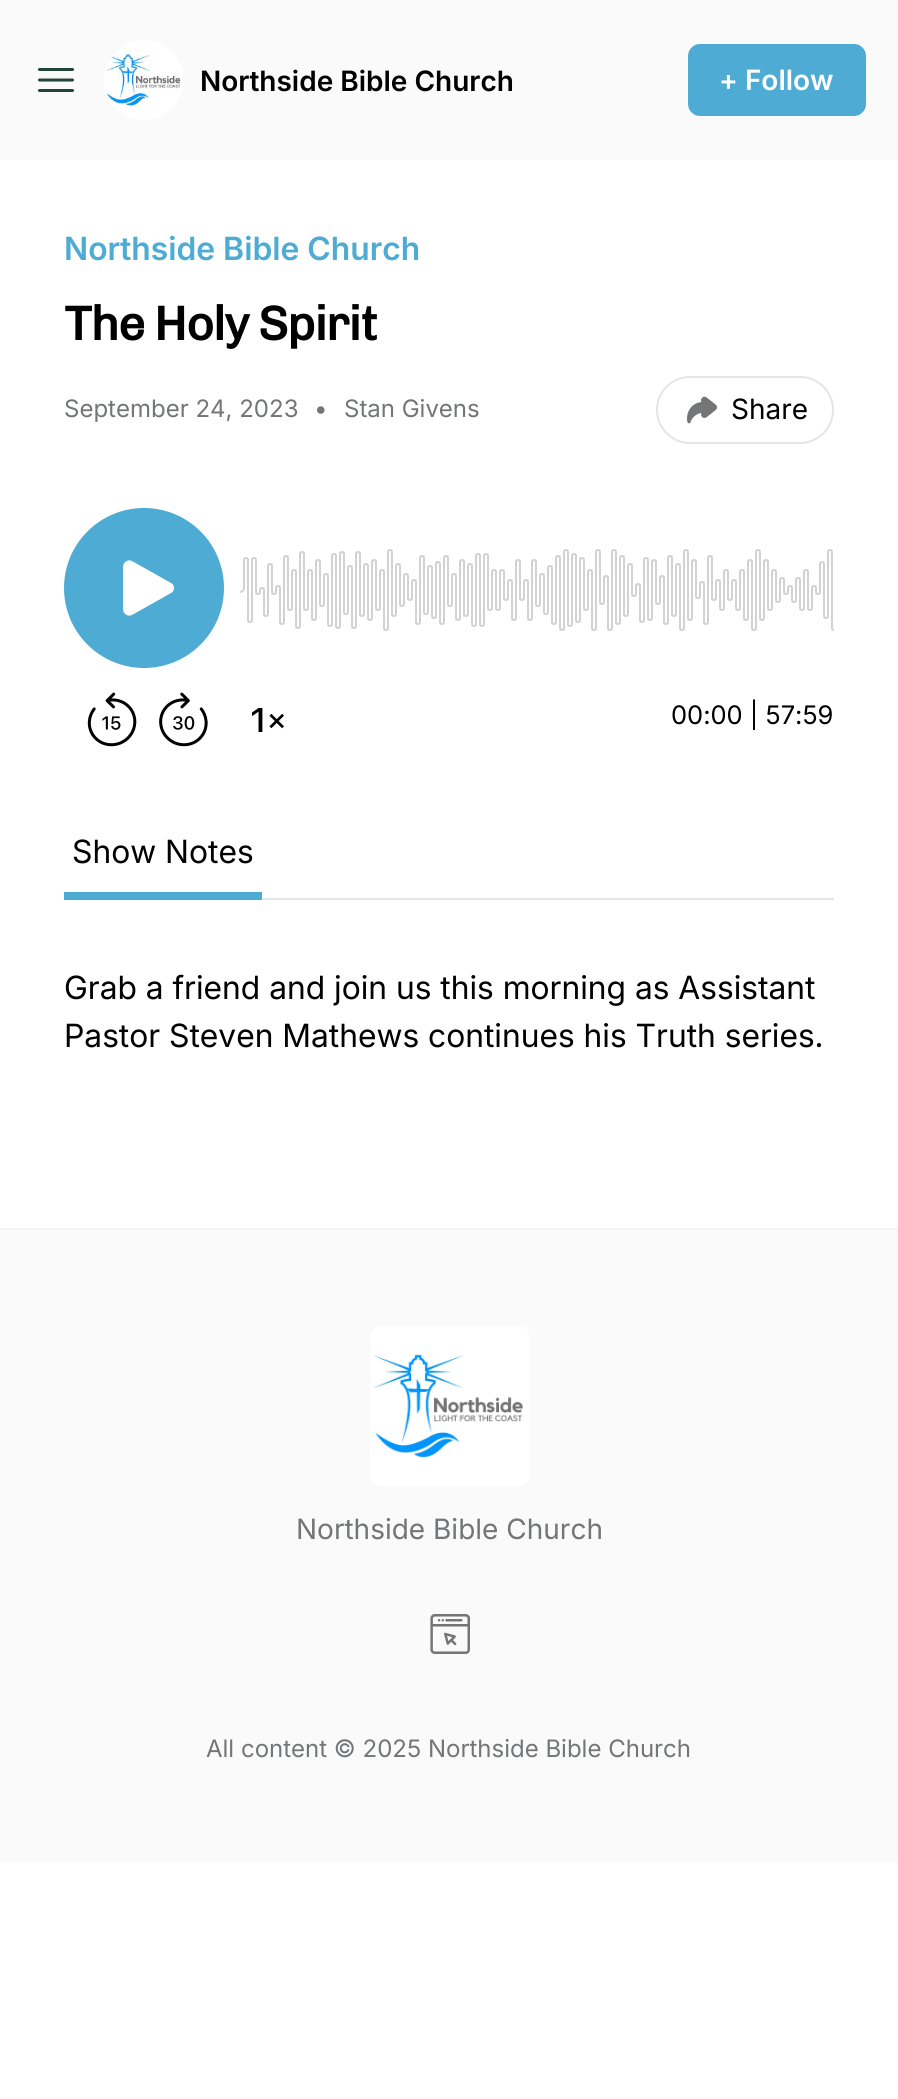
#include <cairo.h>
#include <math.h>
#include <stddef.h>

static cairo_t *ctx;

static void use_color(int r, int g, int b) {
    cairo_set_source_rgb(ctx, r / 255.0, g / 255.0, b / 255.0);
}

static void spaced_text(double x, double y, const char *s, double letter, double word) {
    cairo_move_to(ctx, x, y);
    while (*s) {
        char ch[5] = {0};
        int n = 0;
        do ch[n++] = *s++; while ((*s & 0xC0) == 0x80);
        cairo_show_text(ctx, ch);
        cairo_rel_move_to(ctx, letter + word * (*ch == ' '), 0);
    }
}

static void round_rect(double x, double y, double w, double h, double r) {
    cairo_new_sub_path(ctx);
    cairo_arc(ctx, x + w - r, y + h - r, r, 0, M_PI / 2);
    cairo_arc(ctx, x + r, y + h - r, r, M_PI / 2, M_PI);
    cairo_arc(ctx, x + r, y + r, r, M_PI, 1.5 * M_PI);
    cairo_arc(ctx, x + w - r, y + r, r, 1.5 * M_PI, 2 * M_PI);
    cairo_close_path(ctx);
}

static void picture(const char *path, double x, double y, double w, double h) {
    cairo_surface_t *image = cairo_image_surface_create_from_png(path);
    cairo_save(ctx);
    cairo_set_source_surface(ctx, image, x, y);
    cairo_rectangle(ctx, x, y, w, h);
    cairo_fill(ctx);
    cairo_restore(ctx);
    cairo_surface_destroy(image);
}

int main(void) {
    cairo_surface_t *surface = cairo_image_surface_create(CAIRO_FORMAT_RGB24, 898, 2099);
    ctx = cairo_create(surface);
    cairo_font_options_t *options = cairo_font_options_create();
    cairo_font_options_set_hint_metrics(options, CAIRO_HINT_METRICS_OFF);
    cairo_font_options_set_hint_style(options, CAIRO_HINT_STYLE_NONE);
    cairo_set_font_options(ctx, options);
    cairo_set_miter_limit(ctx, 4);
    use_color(255, 255, 255);
    cairo_paint(ctx);
    use_color(250, 250, 250);
    cairo_rectangle(ctx, 0, 0, 898, 160);
    cairo_fill(ctx);
    cairo_new_path(ctx);
    cairo_move_to(ctx, 39.5, 69.5);
    cairo_line_to(ctx, 72.5, 69.5);
    cairo_move_to(ctx, 39.5, 80);
    cairo_line_to(ctx, 72.5, 80);
    cairo_move_to(ctx, 39.5, 90.5);
    cairo_line_to(ctx, 72.5, 90.5);
    use_color(33, 69, 56);
    cairo_set_line_width(ctx, 3);
    cairo_set_line_cap(ctx, CAIRO_LINE_CAP_ROUND);
    cairo_set_line_join(ctx, CAIRO_LINE_JOIN_ROUND);
    cairo_stroke(ctx);
    picture("img1.png", 104, 40, 80, 80);
    cairo_select_font_face(ctx, "Inter SemiBold", CAIRO_FONT_SLANT_NORMAL, CAIRO_FONT_WEIGHT_NORMAL);
    cairo_set_font_size(ctx, 28);
    use_color(0, 0, 0);
    cairo_move_to(ctx, 200, 91);
    cairo_show_text(ctx, "Northside Bible Church");
    use_color(78, 172, 212);
    round_rect(688, 44, 178, 72, 12);
    cairo_fill(ctx);
    use_color(255, 255, 255);
    cairo_move_to(ctx, 719, 90);
    cairo_show_text(ctx, "+ Follow");
    cairo_select_font_face(ctx, "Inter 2 SemiBold", CAIRO_FONT_SLANT_NORMAL, CAIRO_FONT_WEIGHT_NORMAL);
    cairo_set_font_size(ctx, 32);
    use_color(78, 172, 212);
    cairo_move_to(ctx, 64, 260);
    cairo_show_text(ctx, "Northside Bible Church");
    cairo_select_font_face(ctx, "Chivo", CAIRO_FONT_SLANT_NORMAL, CAIRO_FONT_WEIGHT_BOLD);
    cairo_set_font_size(ctx, 48);
    use_color(0, 0, 0);
    spaced_text(64, 340, "The Holy Spirit", -1.25, 0);
    cairo_select_font_face(ctx, "Inter", CAIRO_FONT_SLANT_NORMAL, CAIRO_FONT_WEIGHT_NORMAL);
    cairo_set_font_size(ctx, 24);
    use_color(116, 117, 118);
    cairo_move_to(ctx, 64, 417);
    cairo_show_text(ctx, "September 24, 2023");
    cairo_move_to(ctx, 314, 417);
    cairo_show_text(ctx, "•");
    cairo_move_to(ctx, 344, 417);
    cairo_show_text(ctx, "Stan Givens");
    round_rect(657, 377, 176, 66, 33);
    use_color(228, 229, 230);
    cairo_set_line_width(ctx, 2);
    cairo_set_line_cap(ctx, CAIRO_LINE_CAP_BUTT);
    cairo_set_line_join(ctx, CAIRO_LINE_JOIN_MITER);
    cairo_stroke(ctx);
    picture("img2.png", 687, 396, 30, 28);
    cairo_set_font_size(ctx, 28);
    use_color(0, 0, 0);
    cairo_move_to(ctx, 731, 419);
    cairo_show_text(ctx, "Share");
    picture("img3.png", 87, 692, 50, 55);
    picture("img4.png", 159, 692, 49, 55);
    picture("img5.png", 252, 708, 32, 24);
    use_color(78, 172, 212);
    cairo_arc(ctx, 144, 588, 80, 0, 2 * M_PI);
    cairo_fill(ctx);
    use_color(255, 255, 255);
    cairo_set_fill_rule(ctx, CAIRO_FILL_RULE_EVEN_ODD);
    cairo_new_path(ctx);
    cairo_move_to(ctx, 123, 567);
    cairo_curve_to(ctx, 123, 562, 128, 559, 132, 561);
    cairo_line_to(ctx, 171, 583);
    cairo_curve_to(ctx, 175, 585, 175, 591, 171, 593);
    cairo_line_to(ctx, 132, 615);
    cairo_curve_to(ctx, 128, 617, 123, 614, 123, 609);
    cairo_close_path(ctx);
    cairo_fill(ctx);
    picture("img6.png", 240, 549, 594, 82);
    cairo_set_font_size(ctx, 25.5);
    use_color(0, 0, 0);
    cairo_move_to(ctx, 671, 724);
    cairo_show_text(ctx, "00:00 | 57:59");
    use_color(228, 229, 230);
    cairo_rectangle(ctx, 262, 898, 572, 2);
    cairo_fill(ctx);
    use_color(78, 172, 212);
    cairo_rectangle(ctx, 64, 892, 198, 8);
    cairo_fill(ctx);
    cairo_select_font_face(ctx, "Inter 2", CAIRO_FONT_SLANT_NORMAL, CAIRO_FONT_WEIGHT_NORMAL);
    cairo_set_font_size(ctx, 32);
    use_color(0, 0, 0);
    cairo_move_to(ctx, 72, 863);
    cairo_show_text(ctx, "Show Notes");
    cairo_move_to(ctx, 64, 999);
    cairo_show_text(ctx, "Grab a friend and join us this morning as Assistant");
    cairo_move_to(ctx, 64, 1047);
    cairo_show_text(ctx, "Pastor Steven Mathews continues his Truth series.");
    use_color(250, 250, 250);
    cairo_rectangle(ctx, 0, 1230, 898, 632);
    cairo_fill(ctx);
    use_color(244, 244, 244);
    cairo_rectangle(ctx, 0, 1228, 898, 2);
    cairo_fill(ctx);
    picture("img7.png", 370, 1326, 160, 160);
    cairo_select_font_face(ctx, "Inter", CAIRO_FONT_SLANT_NORMAL, CAIRO_FONT_WEIGHT_NORMAL);
    cairo_set_font_size(ctx, 28);
    use_color(116, 117, 118);
    cairo_move_to(ctx, 296, 1539);
    cairo_show_text(ctx, "Northside Bible Church");
    picture("img8.png", 430, 1614, 40, 40);
    cairo_set_font_size(ctx, 24);
    cairo_move_to(ctx, 206, 1757);
    cairo_show_text(ctx, "All content © 2025 Northside Bible Church");
    cairo_surface_write_to_png(surface, "result.png");
    cairo_font_options_destroy(options);
    cairo_destroy(ctx);
    cairo_surface_destroy(surface);
    return 0;
}
